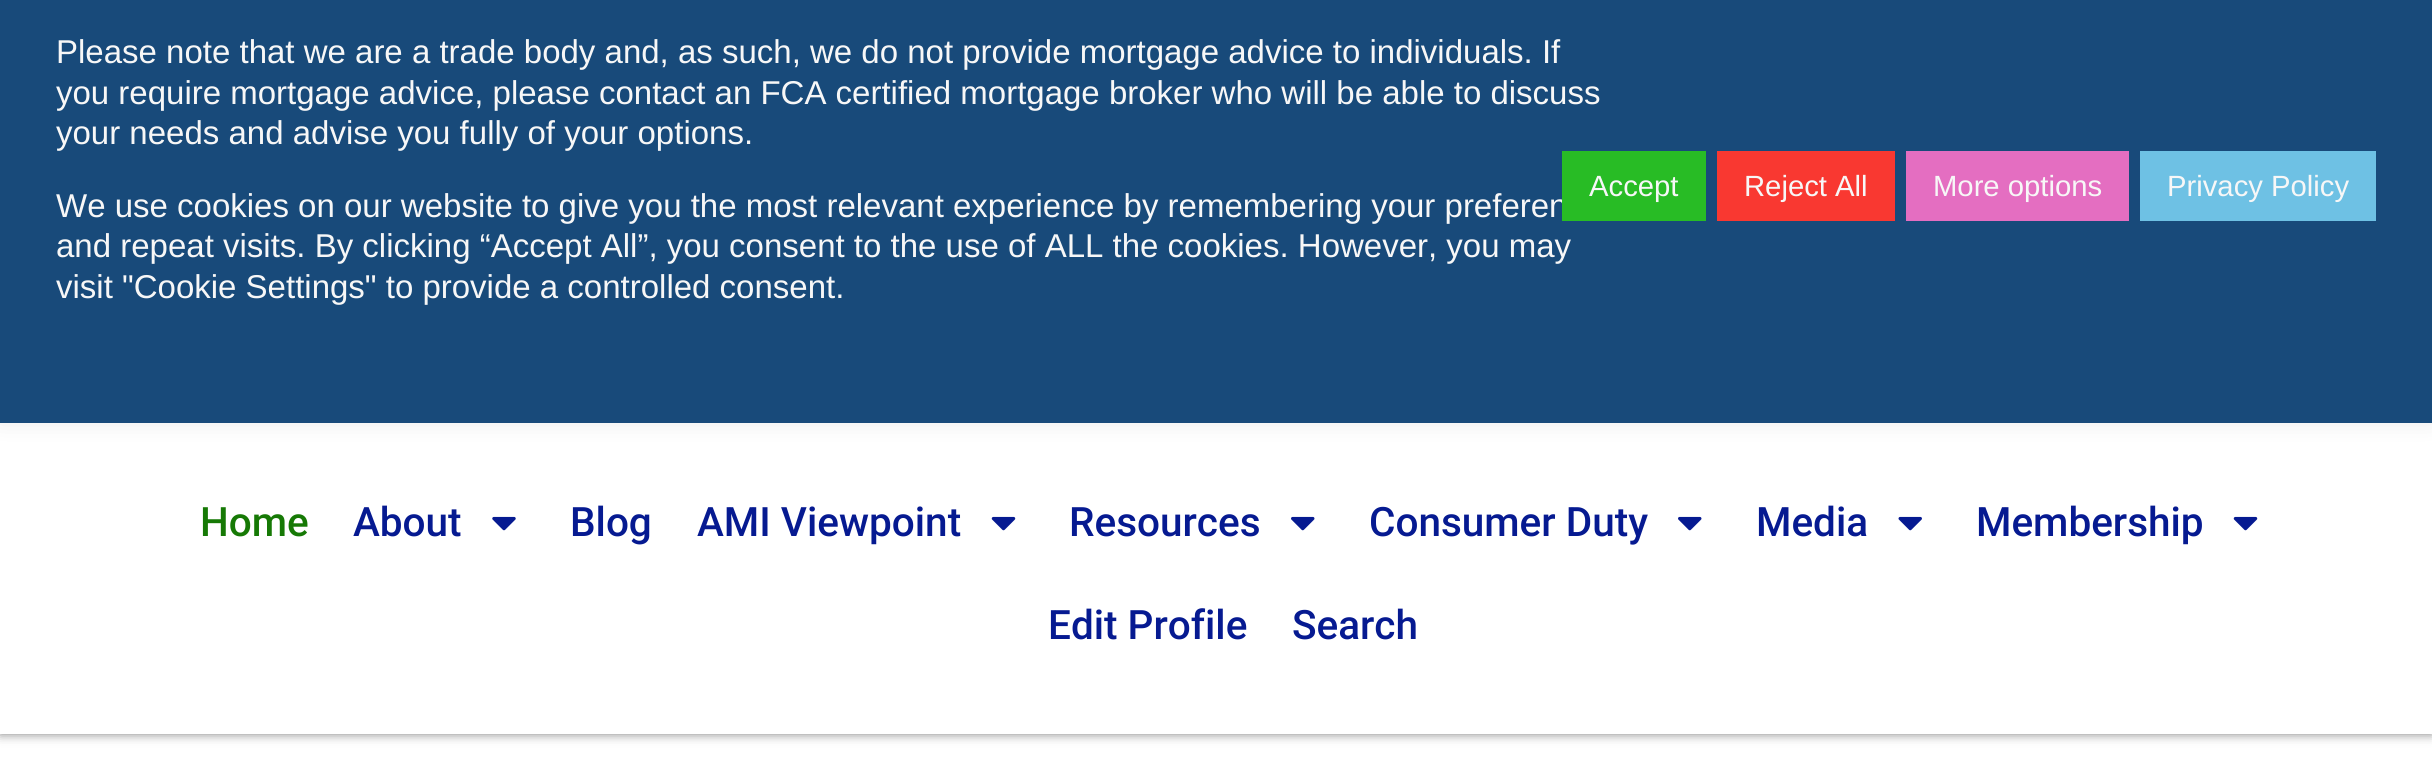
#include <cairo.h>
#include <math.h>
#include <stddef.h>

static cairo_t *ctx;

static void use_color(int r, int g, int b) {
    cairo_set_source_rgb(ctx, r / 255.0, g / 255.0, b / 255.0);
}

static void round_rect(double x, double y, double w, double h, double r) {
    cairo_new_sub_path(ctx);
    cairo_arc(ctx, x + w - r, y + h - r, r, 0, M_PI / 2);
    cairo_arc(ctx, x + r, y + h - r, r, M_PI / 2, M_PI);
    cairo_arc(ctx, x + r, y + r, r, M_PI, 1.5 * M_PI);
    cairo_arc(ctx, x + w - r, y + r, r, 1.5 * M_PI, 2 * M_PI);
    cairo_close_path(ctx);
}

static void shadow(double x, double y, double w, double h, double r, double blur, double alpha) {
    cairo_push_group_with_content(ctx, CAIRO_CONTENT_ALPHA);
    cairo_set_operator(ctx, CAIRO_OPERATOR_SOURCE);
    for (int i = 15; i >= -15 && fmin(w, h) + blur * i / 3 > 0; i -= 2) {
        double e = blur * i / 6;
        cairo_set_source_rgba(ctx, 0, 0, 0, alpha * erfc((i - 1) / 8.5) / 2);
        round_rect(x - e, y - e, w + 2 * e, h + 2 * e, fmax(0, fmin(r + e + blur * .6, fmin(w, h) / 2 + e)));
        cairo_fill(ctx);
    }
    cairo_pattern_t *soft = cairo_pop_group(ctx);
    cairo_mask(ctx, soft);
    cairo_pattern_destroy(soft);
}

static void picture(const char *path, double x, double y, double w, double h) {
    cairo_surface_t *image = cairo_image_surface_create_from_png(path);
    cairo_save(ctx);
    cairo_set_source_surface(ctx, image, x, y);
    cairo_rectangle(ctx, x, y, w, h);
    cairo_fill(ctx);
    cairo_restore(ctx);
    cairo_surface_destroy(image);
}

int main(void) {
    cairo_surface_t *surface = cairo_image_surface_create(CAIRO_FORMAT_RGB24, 2432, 783);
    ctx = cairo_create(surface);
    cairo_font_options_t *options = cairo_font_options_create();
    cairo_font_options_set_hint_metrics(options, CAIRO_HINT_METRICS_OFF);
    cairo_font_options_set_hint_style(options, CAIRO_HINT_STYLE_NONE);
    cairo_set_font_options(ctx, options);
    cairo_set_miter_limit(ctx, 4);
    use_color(255, 255, 255);
    cairo_paint(ctx);
    use_color(172, 171, 171);
    shadow(0, -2, 2432, 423, 0, 11, 0.3);
    cairo_save(ctx);
    cairo_set_fill_rule(ctx, CAIRO_FILL_RULE_EVEN_ODD);
    cairo_new_path(ctx);
    cairo_move_to(ctx, 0, 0);
    cairo_line_to(ctx, 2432, 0);
    cairo_line_to(ctx, 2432, 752);
    cairo_line_to(ctx, 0, 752);
    cairo_close_path(ctx);
    cairo_move_to(ctx, 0, 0);
    cairo_line_to(ctx, 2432, 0);
    cairo_line_to(ctx, 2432, 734);
    cairo_line_to(ctx, 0, 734);
    cairo_close_path(ctx);
    cairo_clip(ctx);
    use_color(0, 0, 0);
    shadow(0, 0, 2432, 734, 0, 5.5, 0.5);
    cairo_restore(ctx);
    use_color(24, 74, 122);
    cairo_rectangle(ctx, 0, 0, 2432, 423);
    cairo_fill(ctx);
    cairo_select_font_face(ctx, "Liberation Sans", CAIRO_FONT_SLANT_NORMAL, CAIRO_FONT_WEIGHT_NORMAL);
    cairo_set_font_size(ctx, 33);
    use_color(247, 247, 247);
    cairo_move_to(ctx, 56, 63);
    cairo_show_text(ctx, "Please note that we are a trade body and, as such, we do not provide mortgage advice to individuals. If");
    cairo_move_to(ctx, 56, 104);
    cairo_show_text(ctx, "you require mortgage advice, please contact an FCA certified mortgage broker who will be able to discuss");
    cairo_move_to(ctx, 56, 144);
    cairo_show_text(ctx, "your needs and advise you fully of your options.");
    cairo_move_to(ctx, 56, 217);
    cairo_show_text(ctx, "We use cookies on our website to give you the most relevant experience by remembering your preferen");
    cairo_move_to(ctx, 56, 257);
    cairo_show_text(ctx, "and repeat visits. By clicking “Accept All”, you consent to the use of ALL the cookies. However, you may");
    cairo_move_to(ctx, 56, 298);
    cairo_show_text(ctx, "visit \"Cookie Settings\" to provide a controlled consent.");
    use_color(40, 188, 37);
    cairo_rectangle(ctx, 1562, 151, 144, 70);
    cairo_fill(ctx);
    cairo_set_font_size(ctx, 29.25);
    use_color(247, 247, 247);
    cairo_move_to(ctx, 1589, 196);
    cairo_show_text(ctx, "Accept");
    use_color(249, 56, 49);
    cairo_rectangle(ctx, 1717, 151, 178, 70);
    cairo_fill(ctx);
    use_color(247, 247, 247);
    cairo_move_to(ctx, 1744, 196);
    cairo_show_text(ctx, "Reject All");
    use_color(228, 110, 193);
    cairo_rectangle(ctx, 1906, 151, 223, 70);
    cairo_fill(ctx);
    use_color(247, 247, 247);
    cairo_move_to(ctx, 1933, 196);
    cairo_show_text(ctx, "More options");
    use_color(110, 193, 228);
    cairo_rectangle(ctx, 2140, 151, 236, 70);
    cairo_fill(ctx);
    use_color(247, 247, 247);
    cairo_move_to(ctx, 2167, 196);
    cairo_show_text(ctx, "Privacy Policy");
    cairo_select_font_face(ctx, "Roboto Medium", CAIRO_FONT_SLANT_NORMAL, CAIRO_FONT_WEIGHT_NORMAL);
    cairo_set_font_size(ctx, 40.5);
    use_color(22, 121, 5);
    cairo_move_to(ctx, 200, 536);
    cairo_show_text(ctx, "Home");
    use_color(6, 26, 145);
    cairo_move_to(ctx, 353, 536);
    cairo_show_text(ctx, "About");
    picture("img1.png", 492, 516, 24, 15);
    cairo_move_to(ctx, 570, 536);
    cairo_show_text(ctx, "Blog");
    cairo_move_to(ctx, 697, 536);
    cairo_show_text(ctx, "AMI Viewpoint");
    picture("img2.png", 991, 516, 25, 15);
    cairo_move_to(ctx, 1069, 536);
    cairo_show_text(ctx, "Resources");
    picture("img3.png", 1291, 516, 24, 15);
    cairo_move_to(ctx, 1369, 536);
    cairo_show_text(ctx, "Consumer Duty");
    picture("img3.png", 1678, 516, 24, 15);
    cairo_move_to(ctx, 1756, 536);
    cairo_show_text(ctx, "Media");
    picture("img4.png", 1898, 516, 24, 15);
    cairo_move_to(ctx, 1976, 536);
    cairo_show_text(ctx, "Membership");
    picture("img2.png", 2233, 516, 25, 15);
    cairo_move_to(ctx, 1048, 639);
    cairo_show_text(ctx, "Edit Profile");
    cairo_move_to(ctx, 1292, 639);
    cairo_show_text(ctx, "Search");
    cairo_surface_write_to_png(surface, "result.png");
    cairo_font_options_destroy(options);
    cairo_destroy(ctx);
    cairo_surface_destroy(surface);
    return 0;
}
